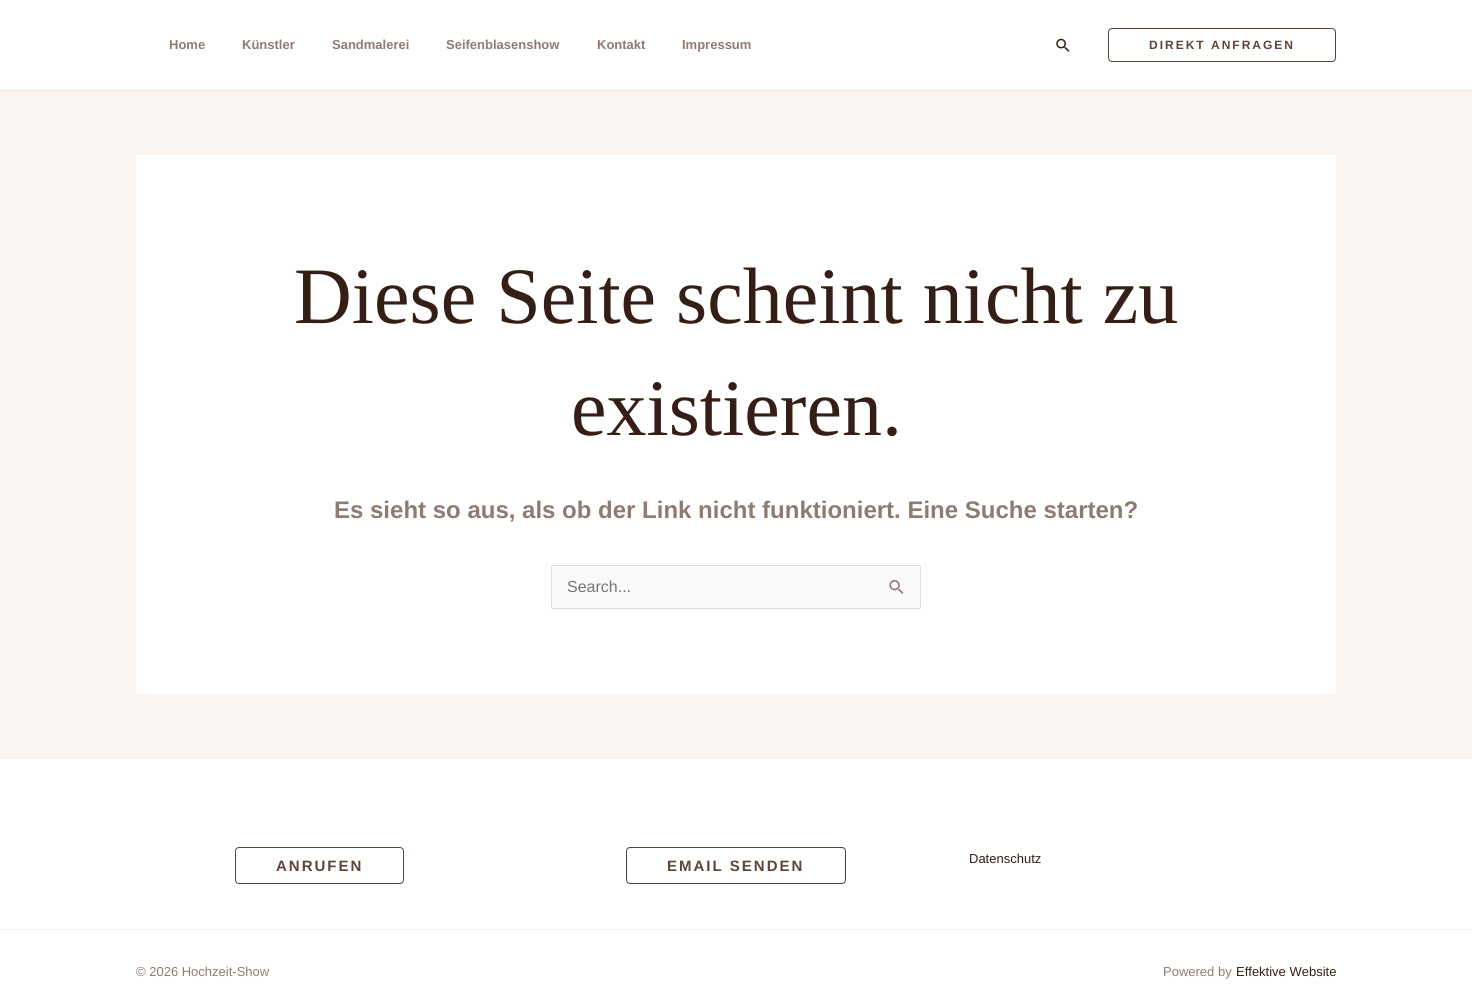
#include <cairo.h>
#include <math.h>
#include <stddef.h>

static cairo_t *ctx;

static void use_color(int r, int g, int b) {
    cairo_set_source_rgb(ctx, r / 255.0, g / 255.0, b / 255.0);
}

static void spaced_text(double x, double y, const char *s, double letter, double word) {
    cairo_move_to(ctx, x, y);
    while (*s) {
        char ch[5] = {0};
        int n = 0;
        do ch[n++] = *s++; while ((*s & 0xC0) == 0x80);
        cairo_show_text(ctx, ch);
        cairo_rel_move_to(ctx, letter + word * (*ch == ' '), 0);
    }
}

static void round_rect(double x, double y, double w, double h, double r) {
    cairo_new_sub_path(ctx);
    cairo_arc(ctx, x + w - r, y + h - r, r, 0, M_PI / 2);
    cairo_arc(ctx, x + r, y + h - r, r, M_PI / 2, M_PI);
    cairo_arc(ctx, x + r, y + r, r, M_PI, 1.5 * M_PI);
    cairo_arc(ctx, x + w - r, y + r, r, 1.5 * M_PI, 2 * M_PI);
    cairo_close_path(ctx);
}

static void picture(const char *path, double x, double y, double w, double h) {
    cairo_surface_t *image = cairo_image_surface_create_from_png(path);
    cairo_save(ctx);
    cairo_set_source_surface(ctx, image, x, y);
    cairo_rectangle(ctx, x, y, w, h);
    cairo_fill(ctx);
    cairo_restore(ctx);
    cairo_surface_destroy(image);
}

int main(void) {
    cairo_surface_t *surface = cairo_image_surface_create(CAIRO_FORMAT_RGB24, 1472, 1008);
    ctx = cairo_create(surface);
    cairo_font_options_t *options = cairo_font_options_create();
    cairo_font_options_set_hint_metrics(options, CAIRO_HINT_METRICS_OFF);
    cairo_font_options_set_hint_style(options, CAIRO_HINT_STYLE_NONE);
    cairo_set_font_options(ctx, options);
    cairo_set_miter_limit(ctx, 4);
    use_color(250, 244, 241);
    cairo_paint(ctx);
    use_color(255, 255, 255);
    cairo_rectangle(ctx, 0, 0, 1472, 90);
    cairo_fill(ctx);
    use_color(234, 234, 234);
    cairo_rectangle(ctx, 0, 90, 1472, 1);
    cairo_fill(ctx);
    cairo_select_font_face(ctx, "Liberation Sans", CAIRO_FONT_SLANT_NORMAL, CAIRO_FONT_WEIGHT_BOLD);
    cairo_set_font_size(ctx, 13);
    use_color(141, 123, 116);
    cairo_move_to(ctx, 169, 49);
    cairo_show_text(ctx, "Home");
    cairo_move_to(ctx, 242, 49);
    cairo_show_text(ctx, "Künstler");
    cairo_move_to(ctx, 332, 49);
    cairo_show_text(ctx, "Sandmalerei");
    cairo_move_to(ctx, 446, 49);
    cairo_show_text(ctx, "Seifenblasenshow");
    cairo_move_to(ctx, 597, 49);
    cairo_show_text(ctx, "Kontakt");
    cairo_move_to(ctx, 682, 49);
    cairo_show_text(ctx, "Impressum");
    picture("img1.png", 1056, 38, 14, 14);
    round_rect(1108.5, 28.5, 227, 33, 3.5);
    use_color(94, 68, 58);
    cairo_set_line_width(ctx, 1);
    cairo_stroke(ctx);
    cairo_set_font_size(ctx, 12);
    spaced_text(1149, 49, "DIREKT ANFRAGEN", 2, 0);
    use_color(255, 255, 255);
    cairo_rectangle(ctx, 136, 155, 1200, 539);
    cairo_fill(ctx);
    cairo_select_font_face(ctx, "Liberation Serif", CAIRO_FONT_SLANT_NORMAL, CAIRO_FONT_WEIGHT_NORMAL);
    cairo_set_font_size(ctx, 80);
    use_color(53, 30, 21);
    cairo_move_to(ctx, 294, 323);
    cairo_show_text(ctx, "Diese Seite scheint nicht zu");
    cairo_move_to(ctx, 571, 435);
    cairo_show_text(ctx, "existieren.");
    cairo_select_font_face(ctx, "Liberation Sans", CAIRO_FONT_SLANT_NORMAL, CAIRO_FONT_WEIGHT_BOLD);
    cairo_set_font_size(ctx, 24);
    use_color(141, 123, 116);
    cairo_move_to(ctx, 334, 518);
    cairo_show_text(ctx, "Es sieht so aus, als ob der Link nicht funktioniert. Eine Suche starten?");
    use_color(250, 250, 250);
    round_rect(551.5, 565.5, 369, 43, 1.5);
    cairo_fill_preserve(ctx);
    use_color(221, 221, 221);
    cairo_stroke(ctx);
    cairo_select_font_face(ctx, "Liberation Sans", CAIRO_FONT_SLANT_NORMAL, CAIRO_FONT_WEIGHT_NORMAL);
    cairo_set_font_size(ctx, 16);
    use_color(117, 117, 117);
    cairo_move_to(ctx, 567, 592);
    cairo_show_text(ctx, "Search...");
    picture("img2.png", 889, 580, 15, 14);
    use_color(255, 255, 255);
    cairo_rectangle(ctx, 0, 759, 1472, 249);
    cairo_fill(ctx);
    cairo_set_font_size(ctx, 13);
    use_color(53, 30, 21);
    cairo_move_to(ctx, 969, 863);
    cairo_show_text(ctx, "Datenschutz");
    round_rect(235.5, 847.5, 168, 36, 3.5);
    use_color(94, 68, 58);
    cairo_stroke(ctx);
    cairo_select_font_face(ctx, "Liberation Sans", CAIRO_FONT_SLANT_NORMAL, CAIRO_FONT_WEIGHT_BOLD);
    cairo_set_font_size(ctx, 15);
    spaced_text(276, 871, "ANRUFEN", 2, 0);
    round_rect(626.5, 847.5, 219, 36, 3.5);
    cairo_stroke(ctx);
    spaced_text(667, 871, "EMAIL SENDEN", 2, 0);
    use_color(250, 244, 241);
    cairo_rectangle(ctx, 0, 929, 1472, 1);
    cairo_fill(ctx);
    cairo_select_font_face(ctx, "Liberation Sans", CAIRO_FONT_SLANT_NORMAL, CAIRO_FONT_WEIGHT_NORMAL);
    cairo_set_font_size(ctx, 13);
    use_color(141, 123, 116);
    cairo_move_to(ctx, 136, 976);
    cairo_show_text(ctx, "© 2026 Hochzeit-Show");
    cairo_move_to(ctx, 1163, 976);
    cairo_show_text(ctx, "Powered by");
    use_color(53, 30, 21);
    cairo_move_to(ctx, 1236, 976);
    cairo_show_text(ctx, "Effektive Website");
    cairo_surface_write_to_png(surface, "result.png");
    cairo_font_options_destroy(options);
    cairo_destroy(ctx);
    cairo_surface_destroy(surface);
    return 0;
}
